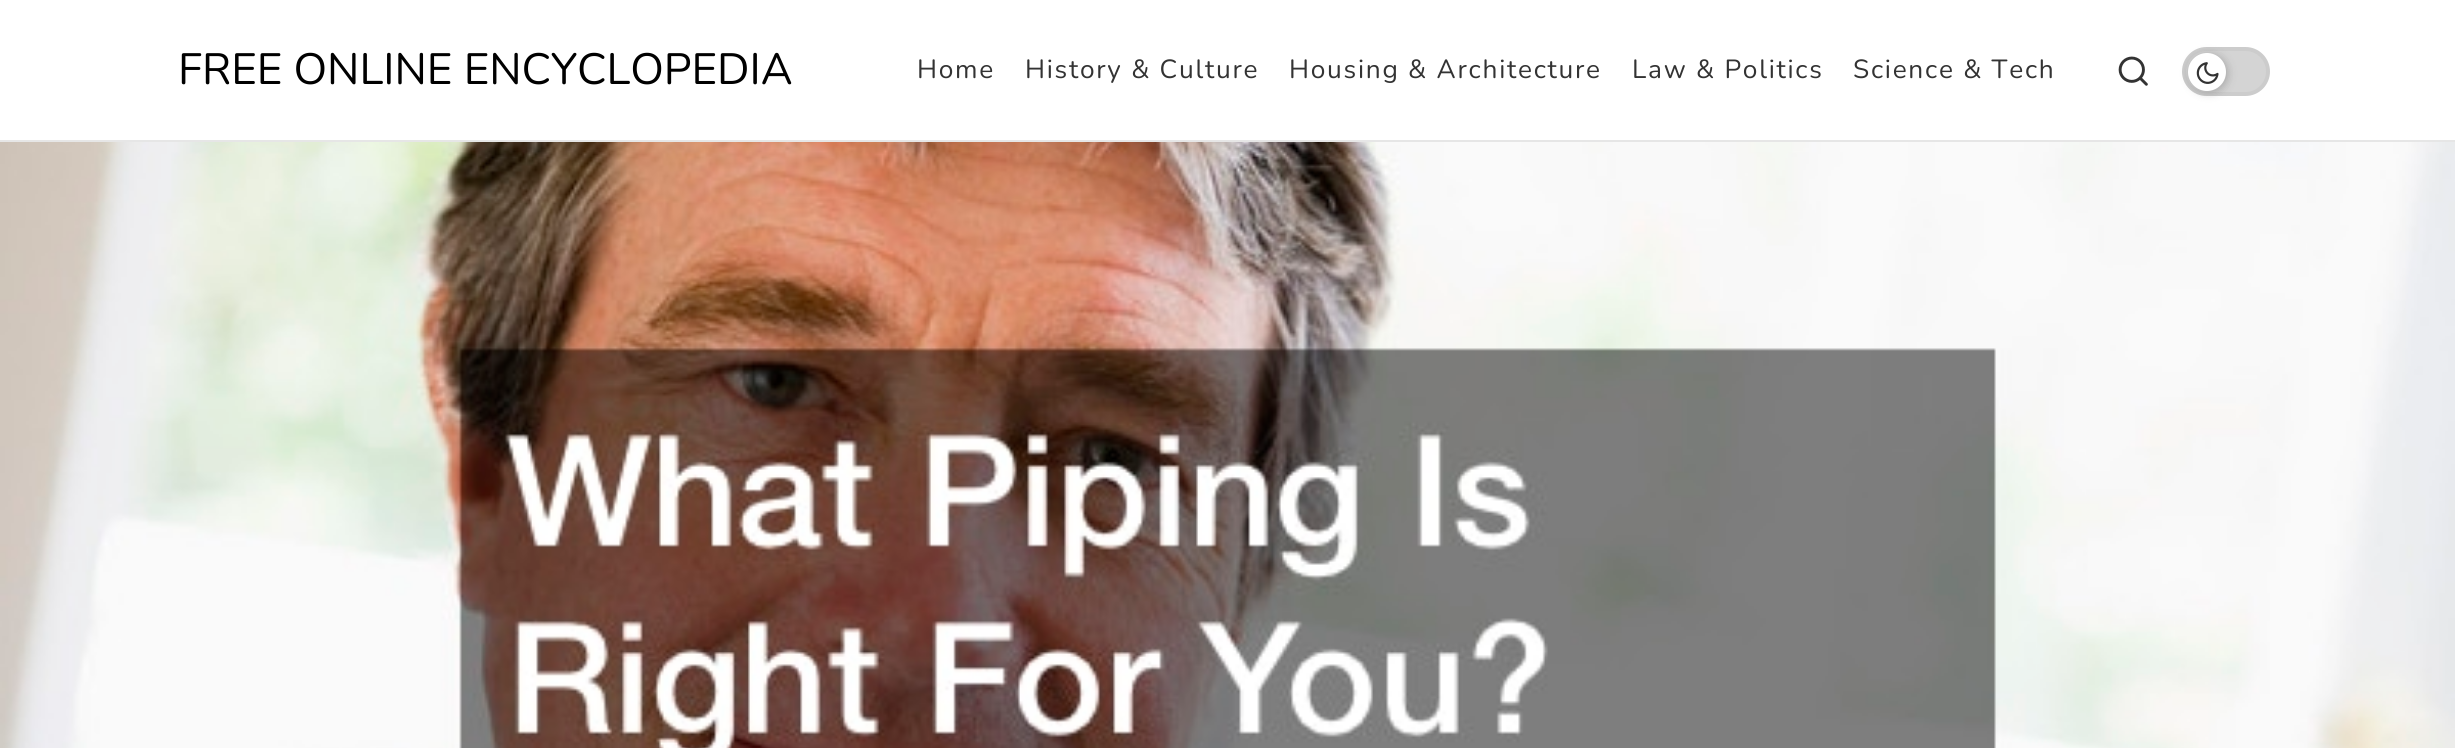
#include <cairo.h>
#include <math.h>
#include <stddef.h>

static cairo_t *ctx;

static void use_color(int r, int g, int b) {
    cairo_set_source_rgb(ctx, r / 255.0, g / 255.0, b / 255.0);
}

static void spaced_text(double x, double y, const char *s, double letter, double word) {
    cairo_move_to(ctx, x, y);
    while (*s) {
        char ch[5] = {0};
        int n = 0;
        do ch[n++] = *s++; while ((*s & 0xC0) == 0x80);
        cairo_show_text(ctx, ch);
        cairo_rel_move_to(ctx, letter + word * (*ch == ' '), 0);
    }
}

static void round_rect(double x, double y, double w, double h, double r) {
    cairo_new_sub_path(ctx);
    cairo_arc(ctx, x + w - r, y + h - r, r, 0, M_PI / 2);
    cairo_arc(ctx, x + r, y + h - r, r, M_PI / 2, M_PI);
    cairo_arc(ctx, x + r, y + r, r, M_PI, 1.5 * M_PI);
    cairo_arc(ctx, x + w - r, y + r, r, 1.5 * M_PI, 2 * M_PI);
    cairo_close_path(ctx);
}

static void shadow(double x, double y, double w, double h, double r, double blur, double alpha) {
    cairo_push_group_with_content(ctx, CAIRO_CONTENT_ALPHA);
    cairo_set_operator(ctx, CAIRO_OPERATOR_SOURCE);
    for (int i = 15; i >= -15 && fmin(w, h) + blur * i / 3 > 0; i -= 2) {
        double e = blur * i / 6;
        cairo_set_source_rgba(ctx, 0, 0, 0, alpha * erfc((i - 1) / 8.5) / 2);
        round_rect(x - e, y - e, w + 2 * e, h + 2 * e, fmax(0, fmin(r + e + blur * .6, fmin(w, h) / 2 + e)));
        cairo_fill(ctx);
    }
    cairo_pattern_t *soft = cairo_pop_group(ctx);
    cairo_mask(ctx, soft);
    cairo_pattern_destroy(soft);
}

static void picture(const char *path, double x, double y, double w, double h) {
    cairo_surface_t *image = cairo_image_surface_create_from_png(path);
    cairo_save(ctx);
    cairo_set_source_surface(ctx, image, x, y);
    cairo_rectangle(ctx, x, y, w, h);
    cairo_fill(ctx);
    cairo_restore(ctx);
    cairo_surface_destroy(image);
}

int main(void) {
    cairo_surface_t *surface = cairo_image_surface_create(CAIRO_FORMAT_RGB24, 2455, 748);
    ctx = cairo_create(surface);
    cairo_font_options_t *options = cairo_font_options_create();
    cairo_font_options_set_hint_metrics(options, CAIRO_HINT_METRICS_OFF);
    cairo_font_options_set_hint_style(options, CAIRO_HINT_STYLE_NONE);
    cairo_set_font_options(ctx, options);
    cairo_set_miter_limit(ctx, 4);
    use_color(255, 255, 255);
    cairo_paint(ctx);
    use_color(230, 230, 230);
    cairo_rectangle(ctx, 0, 140, 2455, 2);
    cairo_fill(ctx);
    cairo_select_font_face(ctx, "Nunito", CAIRO_FONT_SLANT_NORMAL, CAIRO_FONT_WEIGHT_NORMAL);
    cairo_set_font_size(ctx, 43.75);
    use_color(0, 0, 0);
    cairo_move_to(ctx, 178, 84);
    cairo_show_text(ctx, "FREE ONLINE ENCYCLOPEDIA");
    cairo_set_font_size(ctx, 26.25);
    use_color(51, 51, 51);
    spaced_text(917, 78, "Home", 1.75, 0);
    spaced_text(1025, 78, "History & Culture", 1.75, 0);
    spaced_text(1289, 78, "Housing & Architecture", 1.75, 0);
    spaced_text(1632, 78, "Law & Politics", 1.75, 0);
    spaced_text(1853, 78, "Science & Tech", 1.75, 0);
    picture("img1.png", 2118, 56, 30, 30);
    use_color(212, 212, 212);
    round_rect(2184, 49, 84, 45, 22.5);
    cairo_fill_preserve(ctx);
    use_color(204, 204, 204);
    cairo_set_line_width(ctx, 4);
    cairo_stroke(ctx);
    use_color(0, 0, 0);
    shadow(2189, 54, 39, 39, 19.5, 4.5, 0.2);
    use_color(255, 255, 255);
    cairo_arc(ctx, 2207, 72, 19, 0, 2 * M_PI);
    cairo_fill(ctx);
    picture("img2.png", 2196, 62, 23, 22);
    picture("img3.png", 0, 142, 2455, 606);
    cairo_surface_write_to_png(surface, "result.png");
    cairo_font_options_destroy(options);
    cairo_destroy(ctx);
    cairo_surface_destroy(surface);
    return 0;
}
